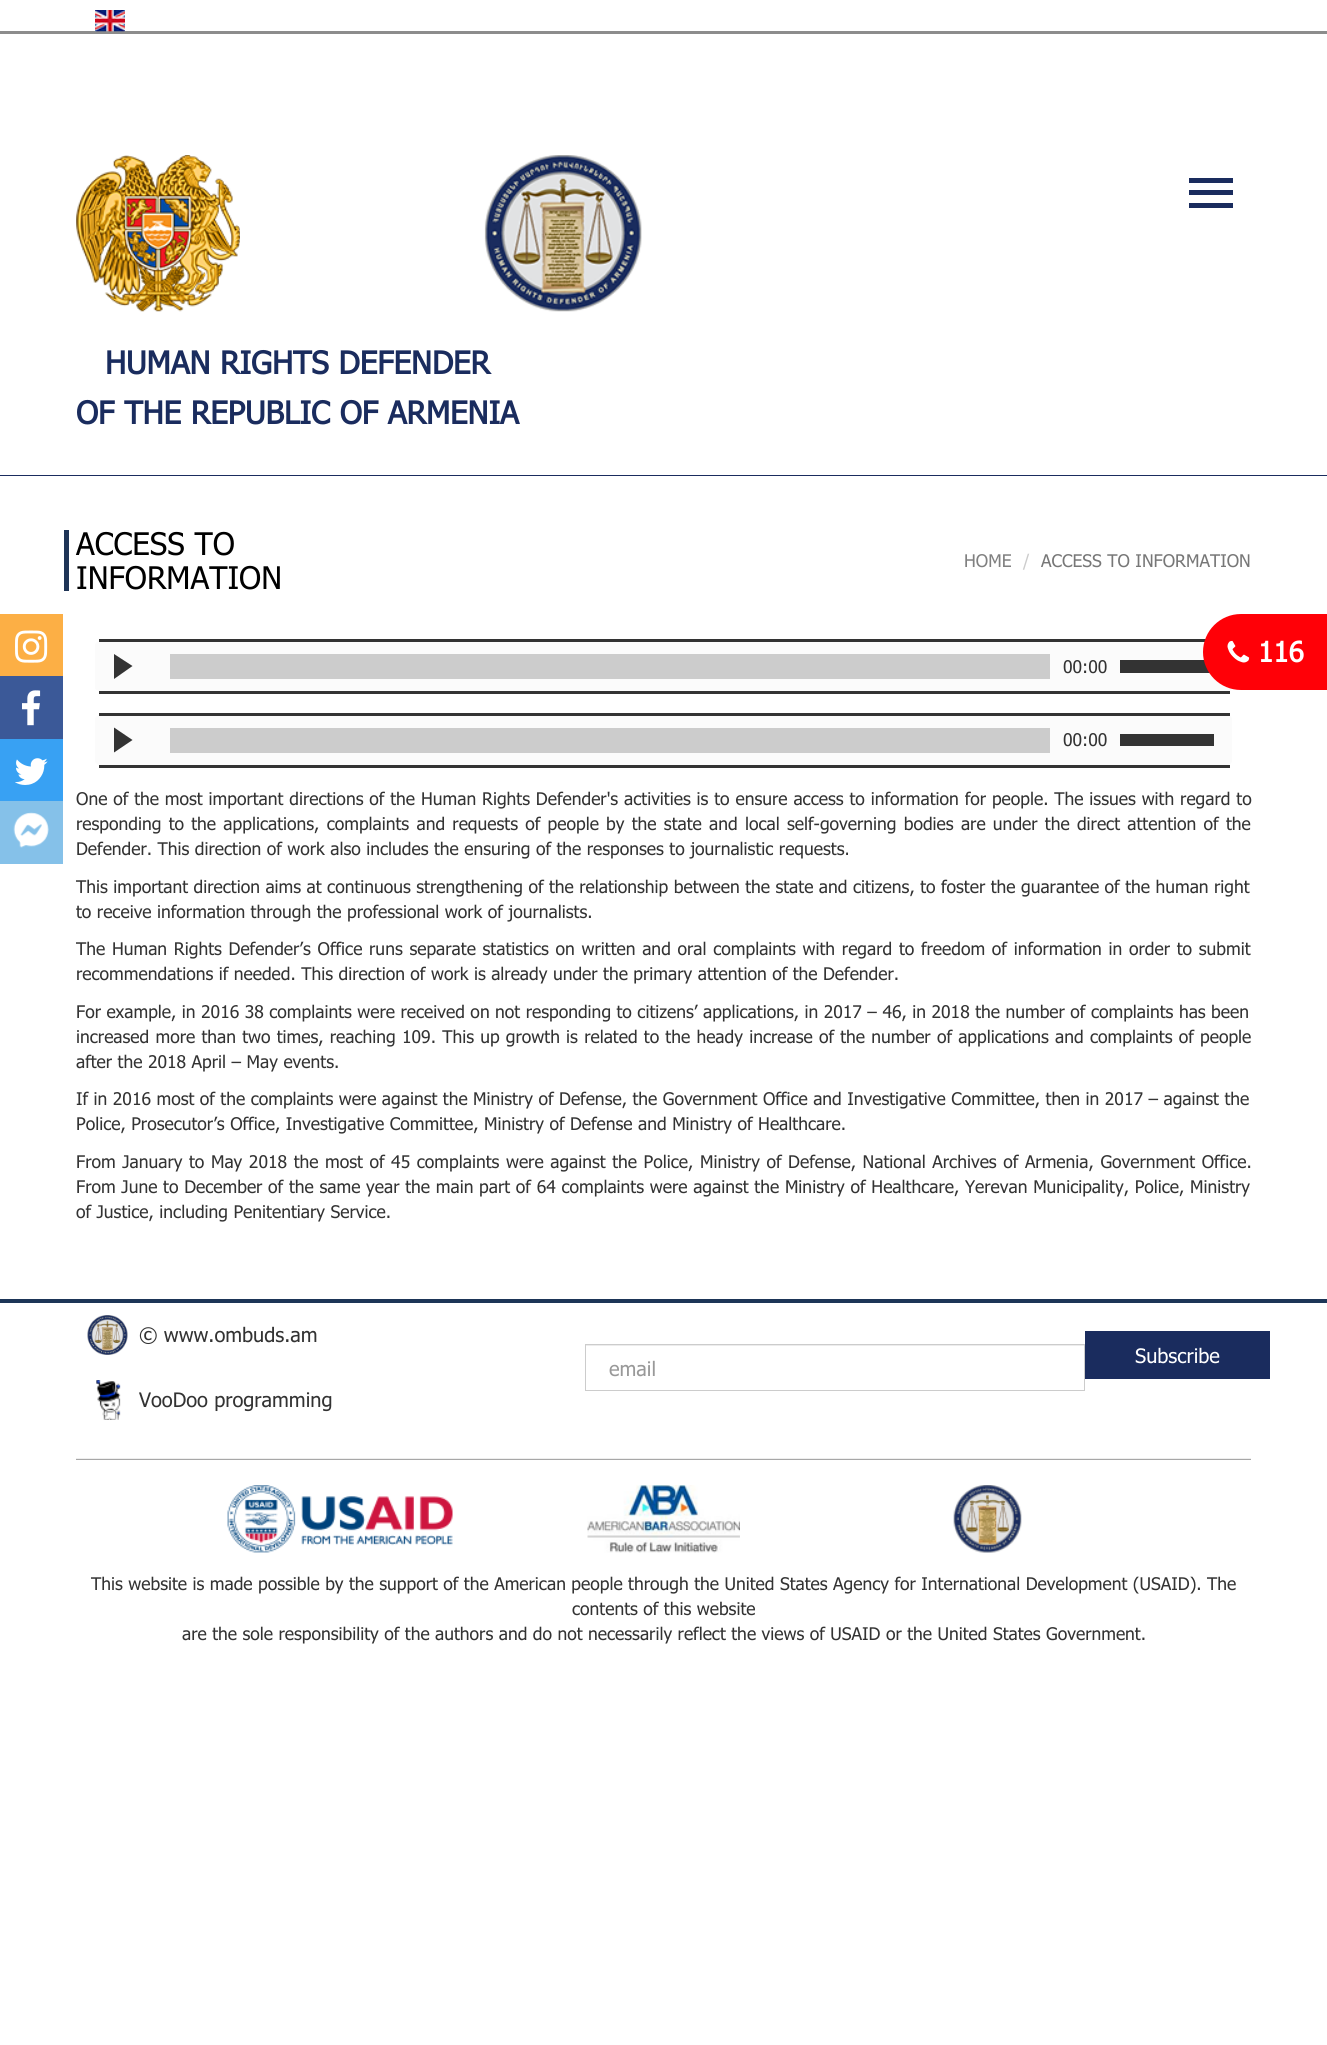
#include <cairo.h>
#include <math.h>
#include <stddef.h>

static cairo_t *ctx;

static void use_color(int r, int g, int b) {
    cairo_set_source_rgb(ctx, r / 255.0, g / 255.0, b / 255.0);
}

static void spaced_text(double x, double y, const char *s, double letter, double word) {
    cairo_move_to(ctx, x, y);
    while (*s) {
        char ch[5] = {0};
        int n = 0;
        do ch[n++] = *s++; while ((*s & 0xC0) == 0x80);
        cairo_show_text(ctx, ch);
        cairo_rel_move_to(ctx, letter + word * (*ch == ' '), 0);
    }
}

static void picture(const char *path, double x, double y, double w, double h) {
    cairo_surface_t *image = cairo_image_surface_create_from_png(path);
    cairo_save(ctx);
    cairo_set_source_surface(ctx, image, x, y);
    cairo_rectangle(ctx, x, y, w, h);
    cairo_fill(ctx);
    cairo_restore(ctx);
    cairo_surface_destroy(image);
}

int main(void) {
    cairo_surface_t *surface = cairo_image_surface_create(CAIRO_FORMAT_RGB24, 1327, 2045);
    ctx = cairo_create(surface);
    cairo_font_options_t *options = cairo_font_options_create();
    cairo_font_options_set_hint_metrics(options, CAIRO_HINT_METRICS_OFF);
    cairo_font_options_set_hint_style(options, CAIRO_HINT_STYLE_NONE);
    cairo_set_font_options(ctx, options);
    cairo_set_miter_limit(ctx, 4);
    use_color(255, 255, 255);
    cairo_paint(ctx);
    use_color(26, 44, 94);
    cairo_rectangle(ctx, 0, 475, 1327, 1);
    cairo_fill(ctx);
    use_color(140, 140, 140);
    cairo_rectangle(ctx, 0, 31, 1327, 3);
    cairo_fill(ctx);
    picture("img1.png", 95, 10, 30, 22);
    picture("img2.png", 76, 155, 164, 157);
    picture("img3.png", 484, 155, 158, 157);
    use_color(26, 44, 94);
    cairo_rectangle(ctx, 1189, 190, 44, 5);
    cairo_fill(ctx);
    cairo_rectangle(ctx, 1189, 178, 44, 5);
    cairo_fill(ctx);
    cairo_rectangle(ctx, 1189, 203, 44, 5);
    cairo_fill(ctx);
    cairo_select_font_face(ctx, "Tahoma", CAIRO_FONT_SLANT_NORMAL, CAIRO_FONT_WEIGHT_BOLD);
    cairo_set_font_size(ctx, 31.25);
    cairo_move_to(ctx, 105, 374);
    cairo_show_text(ctx, "HUMAN RIGHTS DEFENDER");
    cairo_move_to(ctx, 76, 424);
    cairo_show_text(ctx, "OF THE REPUBLIC OF ARMENIA");
    use_color(252, 175, 69);
    cairo_rectangle(ctx, 0, 614, 63, 62);
    cairo_fill(ctx);
    picture("img4.png", 15, 630, 33, 33);
    use_color(59, 89, 152);
    cairo_rectangle(ctx, 0, 676, 63, 63);
    cairo_fill(ctx);
    picture("img5.png", 22, 690, 19, 36);
    use_color(56, 161, 243);
    cairo_rectangle(ctx, 0, 739, 63, 62);
    cairo_fill(ctx);
    picture("img6.png", 15, 758, 33, 27);
    use_color(133, 193, 233);
    cairo_rectangle(ctx, 0, 801, 63, 63);
    cairo_fill(ctx);
    picture("img7.png", 13, 812, 36, 36);
    use_color(30, 52, 86);
    cairo_rectangle(ctx, 64, 530, 5, 61);
    cairo_fill(ctx);
    cairo_select_font_face(ctx, "Tahoma", CAIRO_FONT_SLANT_NORMAL, CAIRO_FONT_WEIGHT_NORMAL);
    use_color(0, 0, 0);
    cairo_move_to(ctx, 76, 555);
    cairo_show_text(ctx, "ACCESS TO");
    cairo_move_to(ctx, 76, 589);
    cairo_show_text(ctx, "INFORMATION");
    cairo_set_font_size(ctx, 17.5);
    use_color(128, 128, 128);
    cairo_move_to(ctx, 964, 567);
    cairo_show_text(ctx, "HOME");
    use_color(204, 204, 204);
    cairo_move_to(ctx, 1023, 567);
    cairo_show_text(ctx, "/");
    use_color(119, 119, 119);
    cairo_move_to(ctx, 1041, 567);
    cairo_show_text(ctx, "ACCESS TO INFORMATION");
    use_color(251, 251, 251);
    cairo_new_path(ctx);
    cairo_move_to(ctx, 101, 641);
    cairo_line_to(ctx, 1226, 641);
    cairo_curve_to(ctx, 1230, 641, 1232, 643, 1232, 645);
    cairo_line_to(ctx, 1232, 688);
    cairo_curve_to(ctx, 1232, 690, 1230, 691, 1226, 691);
    cairo_line_to(ctx, 101, 691);
    cairo_curve_to(ctx, 98, 691, 95, 690, 95, 688);
    cairo_line_to(ctx, 95, 645);
    cairo_curve_to(ctx, 95, 643, 98, 641, 101, 641);
    cairo_close_path(ctx);
    cairo_fill(ctx);
    use_color(51, 51, 51);
    cairo_rectangle(ctx, 99, 639, 1107, 3);
    cairo_fill(ctx);
    cairo_rectangle(ctx, 99, 691, 1131, 3);
    cairo_fill(ctx);
    cairo_new_path(ctx);
    cairo_move_to(ctx, 114, 679);
    cairo_line_to(ctx, 114, 654);
    cairo_line_to(ctx, 132.5, 666);
    cairo_close_path(ctx);
    cairo_fill(ctx);
    use_color(204, 204, 204);
    cairo_rectangle(ctx, 170, 654, 880, 25);
    cairo_fill(ctx);
    use_color(51, 51, 51);
    cairo_move_to(ctx, 1063, 673);
    cairo_show_text(ctx, "00:00");
    cairo_rectangle(ctx, 1120, 660, 90, 13);
    cairo_fill(ctx);
    use_color(251, 251, 251);
    cairo_new_path(ctx);
    cairo_move_to(ctx, 101, 715);
    cairo_line_to(ctx, 1226, 715);
    cairo_curve_to(ctx, 1230, 715, 1232, 717, 1232, 719);
    cairo_line_to(ctx, 1232, 761);
    cairo_curve_to(ctx, 1232, 763, 1230, 765, 1226, 765);
    cairo_line_to(ctx, 101, 765);
    cairo_curve_to(ctx, 98, 765, 95, 763, 95, 761);
    cairo_line_to(ctx, 95, 719);
    cairo_curve_to(ctx, 95, 717, 98, 715, 101, 715);
    cairo_close_path(ctx);
    cairo_fill(ctx);
    use_color(51, 51, 51);
    cairo_rectangle(ctx, 99, 713, 1131, 3);
    cairo_fill(ctx);
    cairo_rectangle(ctx, 99, 765, 1131, 3);
    cairo_fill(ctx);
    cairo_new_path(ctx);
    cairo_move_to(ctx, 114, 752.5);
    cairo_line_to(ctx, 114, 727.5);
    cairo_line_to(ctx, 132.5, 740);
    cairo_close_path(ctx);
    cairo_fill(ctx);
    use_color(204, 204, 204);
    cairo_rectangle(ctx, 170, 728, 880, 25);
    cairo_fill(ctx);
    use_color(51, 51, 51);
    cairo_move_to(ctx, 1063, 746);
    cairo_show_text(ctx, "00:00");
    cairo_rectangle(ctx, 1120, 734, 94, 12);
    cairo_fill(ctx);
    spaced_text(76, 805, "One of the most important directions of the Human Rights Defender's activities is to ensure access to information for people. The issues with regard to", 0, 0.4);
    spaced_text(76, 830, "responding to the applications, complaints and requests of people by the state and local self-governing bodies are under the direct attention of the", 0, 1.8);
    cairo_move_to(ctx, 76, 855);
    cairo_show_text(ctx, "Defender. This direction of work also includes the ensuring of the responses to journalistic requests.");
    cairo_move_to(ctx, 76, 893);
    cairo_show_text(ctx, "This important direction aims at continuous strengthening of the relationship between the state and citizens, to foster the guarantee of the human right");
    cairo_move_to(ctx, 76, 918);
    cairo_show_text(ctx, "to receive information through the professional work of journalists.");
    spaced_text(76, 955, "The Human Rights Defender’s Office runs separate statistics on written and oral complaints with regard to freedom of information in order to submit", 0, 1.25);
    cairo_move_to(ctx, 76, 980);
    cairo_show_text(ctx, "recommendations if needed. This direction of work is already under the primary attention of the Defender.");
    cairo_move_to(ctx, 76, 1018);
    cairo_show_text(ctx, "For example, in 2016 38 complaints were received on not responding to citizens’ applications, in 2017 – 46, in 2018 the number of complaints has been");
    spaced_text(76, 1043, "increased more than two times, reaching 109. This up growth is related to the heady increase of the number of applications and complaints of people", 0, 0.75);
    cairo_move_to(ctx, 76, 1068);
    cairo_show_text(ctx, "after the 2018 April – May events.");
    cairo_move_to(ctx, 76, 1105);
    cairo_show_text(ctx, "If in 2016 most of the complaints were against the Ministry of Defense, the Government Office and Investigative Committee, then in 2017 – against the");
    cairo_move_to(ctx, 76, 1130);
    cairo_show_text(ctx, "Police, Prosecutor’s Office, Investigative Committee, Ministry of Defense and Ministry of Healthcare.");
    spaced_text(76, 1168, "From January to May 2018 the most of 45 complaints were against the Police, Ministry of Defense, National Archives of Armenia, Government Office.", 0, 1.1);
    spaced_text(76, 1193, "From June to December of the same year the main part of 64 complaints were against the Ministry of Healthcare, Yerevan Municipality, Police, Ministry", 0, 0.25);
    cairo_move_to(ctx, 76, 1218);
    cairo_show_text(ctx, "of Justice, including Penitentiary Service.");
    use_color(255, 0, 7);
    cairo_new_path(ctx);
    cairo_move_to(ctx, 1241, 614);
    cairo_line_to(ctx, 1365, 614);
    cairo_line_to(ctx, 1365, 690);
    cairo_line_to(ctx, 1241, 690);
    cairo_curve_to(ctx, 1220, 690, 1203, 673, 1203, 652);
    cairo_curve_to(ctx, 1203, 631, 1220, 614, 1241, 614);
    cairo_close_path(ctx);
    cairo_fill(ctx);
    picture("img8.png", 1227, 640, 23, 23);
    cairo_select_font_face(ctx, "Tahoma", CAIRO_FONT_SLANT_NORMAL, CAIRO_FONT_WEIGHT_BOLD);
    cairo_set_font_size(ctx, 28);
    use_color(255, 255, 255);
    cairo_move_to(ctx, 1258, 662);
    cairo_show_text(ctx, "116");
    use_color(29, 53, 87);
    cairo_rectangle(ctx, 0, 1299, 1327, 4);
    cairo_fill(ctx);
    picture("img9.png", 87, 1315, 41, 40);
    cairo_select_font_face(ctx, "Tahoma", CAIRO_FONT_SLANT_NORMAL, CAIRO_FONT_WEIGHT_NORMAL);
    cairo_set_font_size(ctx, 20);
    use_color(51, 51, 51);
    cairo_move_to(ctx, 139, 1342);
    cairo_show_text(ctx, "© www.ombuds.am");
    picture("img10.png", 96, 1380, 25, 40);
    cairo_move_to(ctx, 139, 1407);
    cairo_show_text(ctx, "VooDoo programming");
    use_color(26, 44, 94);
    cairo_rectangle(ctx, 1085, 1331, 185, 48);
    cairo_fill(ctx);
    use_color(255, 255, 255);
    cairo_move_to(ctx, 1135, 1363);
    cairo_show_text(ctx, "Subscribe");
    use_color(236, 236, 236);
    cairo_rectangle(ctx, 586, 1345, 498, 1);
    cairo_fill(ctx);
    cairo_rectangle(ctx, 585.5, 1344.5, 499, 46);
    use_color(204, 204, 204);
    cairo_set_line_width(ctx, 1);
    cairo_stroke(ctx);
    use_color(153, 153, 153);
    cairo_move_to(ctx, 609, 1376);
    cairo_show_text(ctx, "email");
    use_color(238, 238, 238);
    cairo_rectangle(ctx, 76, 1458, 1175, 1);
    cairo_fill(ctx);
    use_color(167, 167, 167);
    cairo_rectangle(ctx, 76, 1459, 1175, 1);
    cairo_fill(ctx);
    picture("img11.png", 227, 1485, 226, 68);
    picture("img12.png", 587, 1485, 153, 68);
    picture("img13.png", 953, 1485, 69, 68);
    cairo_set_font_size(ctx, 17.5);
    use_color(51, 51, 51);
    cairo_move_to(ctx, 91, 1590);
    cairo_show_text(ctx, "This website is made possible by the support of the American people through the United States Agency for International Development (USAID). The");
    cairo_move_to(ctx, 572, 1615);
    cairo_show_text(ctx, "contents of this website");
    cairo_move_to(ctx, 182, 1640);
    cairo_show_text(ctx, "are the sole responsibility of the authors and do not necessarily reflect the views of USAID or the United States Government.");
    cairo_surface_write_to_png(surface, "result.png");
    cairo_font_options_destroy(options);
    cairo_destroy(ctx);
    cairo_surface_destroy(surface);
    return 0;
}
